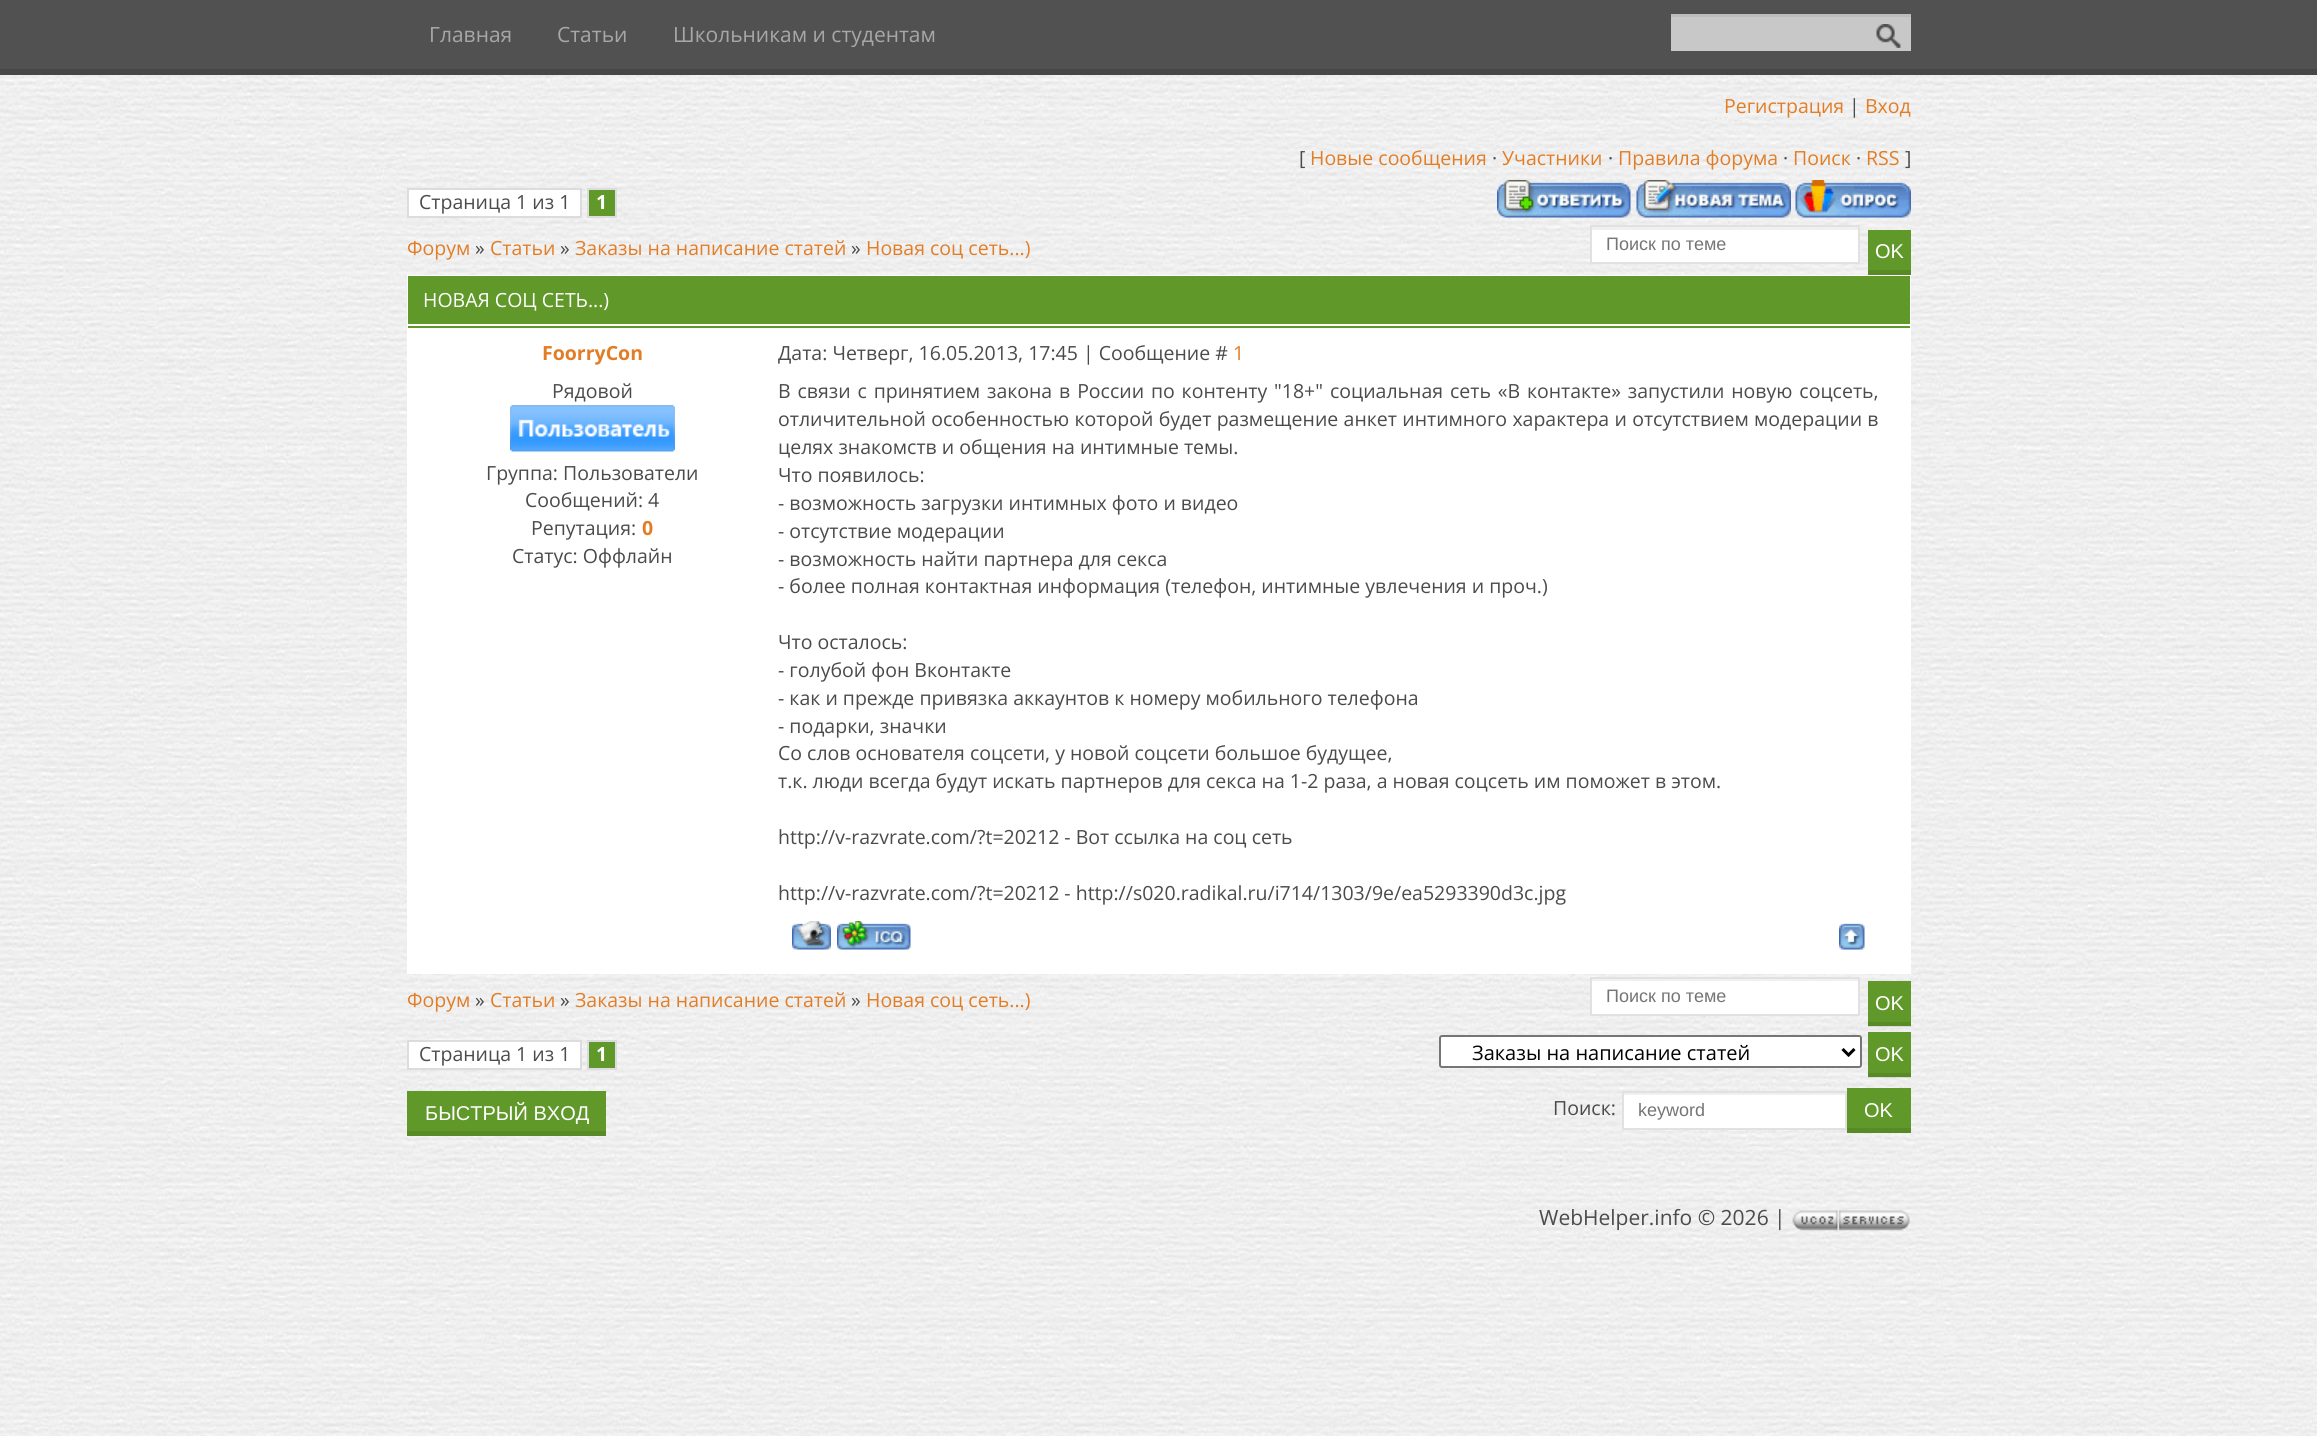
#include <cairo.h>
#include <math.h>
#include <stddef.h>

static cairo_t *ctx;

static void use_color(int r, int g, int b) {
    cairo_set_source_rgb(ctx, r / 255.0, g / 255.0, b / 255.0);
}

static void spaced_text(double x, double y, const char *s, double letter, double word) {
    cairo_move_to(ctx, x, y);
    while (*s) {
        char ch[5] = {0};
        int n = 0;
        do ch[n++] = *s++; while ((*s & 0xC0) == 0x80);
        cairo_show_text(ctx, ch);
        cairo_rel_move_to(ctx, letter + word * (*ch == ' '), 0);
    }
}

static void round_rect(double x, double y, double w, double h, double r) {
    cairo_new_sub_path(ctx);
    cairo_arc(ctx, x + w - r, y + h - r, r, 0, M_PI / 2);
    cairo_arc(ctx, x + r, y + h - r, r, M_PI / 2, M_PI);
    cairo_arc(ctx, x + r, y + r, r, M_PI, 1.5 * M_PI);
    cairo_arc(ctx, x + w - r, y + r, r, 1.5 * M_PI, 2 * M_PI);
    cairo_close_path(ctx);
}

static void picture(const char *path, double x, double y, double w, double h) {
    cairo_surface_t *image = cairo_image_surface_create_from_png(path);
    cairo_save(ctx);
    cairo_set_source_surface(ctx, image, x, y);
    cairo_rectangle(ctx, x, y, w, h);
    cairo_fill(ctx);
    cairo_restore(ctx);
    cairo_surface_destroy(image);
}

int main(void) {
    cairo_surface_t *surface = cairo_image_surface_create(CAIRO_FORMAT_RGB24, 2317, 1436);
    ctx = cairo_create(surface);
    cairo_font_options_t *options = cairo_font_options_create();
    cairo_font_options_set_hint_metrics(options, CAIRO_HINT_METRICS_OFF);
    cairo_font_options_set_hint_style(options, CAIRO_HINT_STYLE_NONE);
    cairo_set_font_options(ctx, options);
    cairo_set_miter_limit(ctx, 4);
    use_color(255, 255, 255);
    cairo_paint(ctx);
    picture("img1.png", 0, 75, 2317, 1361);
    use_color(81, 81, 81);
    cairo_rectangle(ctx, 0, 0, 2317, 69);
    cairo_fill(ctx);
    use_color(70, 70, 70);
    cairo_rectangle(ctx, 0, 69, 2317, 6);
    cairo_fill(ctx);
    cairo_select_font_face(ctx, "Open Sans", CAIRO_FONT_SLANT_NORMAL, CAIRO_FONT_WEIGHT_NORMAL);
    cairo_set_font_size(ctx, 21);
    use_color(167, 167, 167);
    cairo_move_to(ctx, 429, 42);
    cairo_show_text(ctx, "Главная");
    cairo_move_to(ctx, 557, 42);
    cairo_show_text(ctx, "Статьи");
    cairo_move_to(ctx, 673, 42);
    cairo_show_text(ctx, "Школьникам и студентам");
    use_color(201, 200, 200);
    cairo_rectangle(ctx, 1671, 17, 240, 34);
    cairo_fill(ctx);
    use_color(189, 188, 188);
    cairo_rectangle(ctx, 1671, 14, 240, 3);
    cairo_fill(ctx);
    picture("img2.png", 1876, 24, 25, 24);
    cairo_set_font_size(ctx, 19.5);
    use_color(226, 125, 37);
    cairo_move_to(ctx, 1724, 113);
    cairo_show_text(ctx, "Регистрация");
    use_color(75, 75, 75);
    cairo_move_to(ctx, 1849, 113);
    cairo_show_text(ctx, "|");
    use_color(226, 125, 37);
    cairo_move_to(ctx, 1865, 113);
    cairo_show_text(ctx, "Вход");
    use_color(75, 75, 75);
    cairo_move_to(ctx, 1299, 165);
    cairo_show_text(ctx, "[");
    use_color(226, 125, 37);
    cairo_move_to(ctx, 1310, 165);
    cairo_show_text(ctx, "Новые сообщения");
    use_color(75, 75, 75);
    cairo_move_to(ctx, 1492, 165);
    cairo_show_text(ctx, "·");
    use_color(226, 125, 37);
    cairo_move_to(ctx, 1502, 165);
    cairo_show_text(ctx, "Участники");
    use_color(75, 75, 75);
    cairo_move_to(ctx, 1608, 165);
    cairo_show_text(ctx, "·");
    use_color(226, 125, 37);
    cairo_move_to(ctx, 1618, 165);
    cairo_show_text(ctx, "Правила форума");
    use_color(75, 75, 75);
    cairo_move_to(ctx, 1783, 165);
    cairo_show_text(ctx, "·");
    use_color(226, 125, 37);
    cairo_move_to(ctx, 1793, 165);
    cairo_show_text(ctx, "Поиск");
    use_color(75, 75, 75);
    cairo_move_to(ctx, 1856, 165);
    cairo_show_text(ctx, "·");
    use_color(226, 125, 37);
    cairo_move_to(ctx, 1866, 165);
    cairo_show_text(ctx, "RSS");
    use_color(75, 75, 75);
    cairo_move_to(ctx, 1905, 165);
    cairo_show_text(ctx, "]");
    use_color(255, 255, 255);
    cairo_rectangle(ctx, 408, 189, 173, 28);
    cairo_fill_preserve(ctx);
    use_color(220, 219, 224);
    cairo_stroke(ctx);
    use_color(75, 75, 75);
    cairo_move_to(ctx, 419, 209);
    cairo_show_text(ctx, "Страница 1 из 1");
    use_color(97, 152, 42);
    cairo_rectangle(ctx, 588, 189, 28, 28);
    cairo_fill_preserve(ctx);
    use_color(220, 219, 224);
    cairo_stroke(ctx);
    cairo_select_font_face(ctx, "Open Sans", CAIRO_FONT_SLANT_NORMAL, CAIRO_FONT_WEIGHT_BOLD);
    use_color(255, 255, 255);
    cairo_move_to(ctx, 596, 209);
    cairo_show_text(ctx, "1");
    picture("img3.png", 1497, 180, 134, 38);
    picture("img4.png", 1636, 180, 155, 38);
    picture("img5.png", 1795, 180, 116, 38);
    cairo_select_font_face(ctx, "Open Sans", CAIRO_FONT_SLANT_NORMAL, CAIRO_FONT_WEIGHT_NORMAL);
    use_color(226, 125, 37);
    cairo_move_to(ctx, 407, 255);
    cairo_show_text(ctx, "Форум");
    use_color(75, 75, 75);
    cairo_move_to(ctx, 475, 255);
    cairo_show_text(ctx, "»");
    use_color(226, 125, 37);
    cairo_move_to(ctx, 490, 255);
    cairo_show_text(ctx, "Статьи");
    use_color(75, 75, 75);
    cairo_move_to(ctx, 560, 255);
    cairo_show_text(ctx, "»");
    use_color(226, 125, 37);
    cairo_move_to(ctx, 575, 255);
    cairo_show_text(ctx, "Заказы на написание статей");
    use_color(75, 75, 75);
    cairo_move_to(ctx, 851, 255);
    cairo_show_text(ctx, "»");
    use_color(226, 125, 37);
    cairo_move_to(ctx, 866, 255);
    cairo_show_text(ctx, "Новая соц сеть...)");
    use_color(255, 255, 255);
    cairo_rectangle(ctx, 1592, 230, 266, 32);
    cairo_fill(ctx);
    use_color(240, 240, 240);
    cairo_rectangle(ctx, 1592, 227, 267, 3);
    cairo_fill(ctx);
    cairo_rectangle(ctx, 1591, 226, 268, 37);
    use_color(225, 225, 225);
    cairo_stroke(ctx);
    cairo_select_font_face(ctx, "Liberation Sans", CAIRO_FONT_SLANT_NORMAL, CAIRO_FONT_WEIGHT_NORMAL);
    cairo_set_font_size(ctx, 18);
    use_color(117, 117, 117);
    cairo_move_to(ctx, 1606, 250);
    cairo_show_text(ctx, "Поиск по теме");
    use_color(97, 152, 42);
    cairo_rectangle(ctx, 1868, 230, 43, 40);
    cairo_fill(ctx);
    use_color(88, 138, 38);
    cairo_rectangle(ctx, 1868, 270, 43, 5);
    cairo_fill(ctx);
    cairo_set_font_size(ctx, 20);
    use_color(255, 255, 255);
    cairo_move_to(ctx, 1875, 258);
    cairo_show_text(ctx, "OK");
    cairo_rectangle(ctx, 407, 275, 1504, 699);
    cairo_fill(ctx);
    use_color(97, 152, 42);
    cairo_rectangle(ctx, 408, 276, 1502, 48);
    cairo_fill(ctx);
    cairo_select_font_face(ctx, "Open Sans", CAIRO_FONT_SLANT_NORMAL, CAIRO_FONT_WEIGHT_NORMAL);
    cairo_set_font_size(ctx, 19.5);
    use_color(255, 255, 255);
    cairo_move_to(ctx, 423, 307);
    cairo_show_text(ctx, "НОВАЯ СОЦ СЕТЬ...)");
    use_color(97, 152, 42);
    cairo_rectangle(ctx, 408, 326, 1502, 2);
    cairo_fill(ctx);
    cairo_select_font_face(ctx, "Open Sans", CAIRO_FONT_SLANT_NORMAL, CAIRO_FONT_WEIGHT_BOLD);
    use_color(226, 125, 37);
    cairo_move_to(ctx, 542, 360);
    cairo_show_text(ctx, "FoorryCon");
    cairo_select_font_face(ctx, "Open Sans", CAIRO_FONT_SLANT_NORMAL, CAIRO_FONT_WEIGHT_NORMAL);
    use_color(75, 75, 75);
    cairo_move_to(ctx, 778, 360);
    cairo_show_text(ctx, "Дата: Четверг, 16.05.2013, 17:45 | Сообщение #");
    use_color(226, 125, 37);
    cairo_move_to(ctx, 1233, 360);
    cairo_show_text(ctx, "1");
    use_color(75, 75, 75);
    cairo_move_to(ctx, 552, 398);
    cairo_show_text(ctx, "Рядовой");
    picture("img6.png", 510, 405, 165, 47);
    cairo_move_to(ctx, 486, 480);
    cairo_show_text(ctx, "Группа: Пользователи");
    cairo_move_to(ctx, 525, 507);
    cairo_show_text(ctx, "Сообщений: 4");
    cairo_move_to(ctx, 531, 535);
    cairo_show_text(ctx, "Репутация:");
    cairo_select_font_face(ctx, "Open Sans", CAIRO_FONT_SLANT_NORMAL, CAIRO_FONT_WEIGHT_BOLD);
    use_color(226, 125, 37);
    cairo_move_to(ctx, 642, 535);
    cairo_show_text(ctx, "0");
    cairo_select_font_face(ctx, "Open Sans", CAIRO_FONT_SLANT_NORMAL, CAIRO_FONT_WEIGHT_NORMAL);
    use_color(75, 75, 75);
    cairo_move_to(ctx, 512, 563);
    cairo_show_text(ctx, "Статус: Оффлайн");
    spaced_text(778, 398, "В связи с принятием закона в России по контенту \"18+\" социальная сеть «В контакте» запустили новую соцсеть,", 0, 1.8);
    spaced_text(778, 426, "отличительной особенностью которой будет размещение анкет интимного характера и отсутствием модерации в", 0, 0.25);
    cairo_move_to(ctx, 778, 454);
    cairo_show_text(ctx, "целях знакомств и общения на интимные темы.");
    cairo_move_to(ctx, 778, 482);
    cairo_show_text(ctx, "Что появилось:");
    cairo_move_to(ctx, 778, 510);
    cairo_show_text(ctx, "- возможность загрузки интимных фото и видео");
    cairo_move_to(ctx, 778, 538);
    cairo_show_text(ctx, "- отсутствие модерации");
    cairo_move_to(ctx, 778, 566);
    cairo_show_text(ctx, "- возможность найти партнера для сeкса");
    cairo_move_to(ctx, 778, 593);
    cairo_show_text(ctx, "- более полная контактная информация (телефон, интимные увлечения и проч.)");
    cairo_move_to(ctx, 778, 649);
    cairo_show_text(ctx, "Что осталось:");
    cairo_move_to(ctx, 778, 677);
    cairo_show_text(ctx, "- голубой фон Вконтакте");
    cairo_move_to(ctx, 778, 705);
    cairo_show_text(ctx, "- как и прежде привязка аккаунтов к номеру мобильного телефона");
    cairo_move_to(ctx, 778, 733);
    cairo_show_text(ctx, "- подарки, значки");
    cairo_move_to(ctx, 778, 760);
    cairo_show_text(ctx, "Со слов основателя соцсети, у новой соцсети большое будущее,");
    cairo_move_to(ctx, 778, 788);
    cairo_show_text(ctx, "т.к. люди всегда будут искать партнеров для секса на 1-2 раза, а новая соцсеть им поможет в этом.");
    cairo_move_to(ctx, 778, 844);
    cairo_show_text(ctx, "http://v-razvrate.com/?t=20212 - Вот ссылка на соц сеть");
    cairo_move_to(ctx, 778, 900);
    cairo_show_text(ctx, "http://v-razvrate.com/?t=20212 - http://s020.radikal.ru/i714/1303/9e/ea5293390d3c.jpg");
    picture("img7.png", 792, 921, 39, 29);
    picture("img8.png", 837, 921, 74, 29);
    picture("img9.png", 1839, 923, 26, 27);
    use_color(226, 125, 37);
    cairo_move_to(ctx, 407, 1007);
    cairo_show_text(ctx, "Форум");
    use_color(75, 75, 75);
    cairo_move_to(ctx, 475, 1007);
    cairo_show_text(ctx, "»");
    use_color(226, 125, 37);
    cairo_move_to(ctx, 490, 1007);
    cairo_show_text(ctx, "Статьи");
    use_color(75, 75, 75);
    cairo_move_to(ctx, 560, 1007);
    cairo_show_text(ctx, "»");
    use_color(226, 125, 37);
    cairo_move_to(ctx, 575, 1007);
    cairo_show_text(ctx, "Заказы на написание статей");
    use_color(75, 75, 75);
    cairo_move_to(ctx, 851, 1007);
    cairo_show_text(ctx, "»");
    use_color(226, 125, 37);
    cairo_move_to(ctx, 866, 1007);
    cairo_show_text(ctx, "Новая соц сеть...)");
    use_color(255, 255, 255);
    cairo_rectangle(ctx, 1592, 981, 266, 33);
    cairo_fill(ctx);
    use_color(240, 240, 240);
    cairo_rectangle(ctx, 1592, 979, 267, 2);
    cairo_fill(ctx);
    cairo_rectangle(ctx, 1591, 978, 268, 37);
    use_color(225, 225, 225);
    cairo_stroke(ctx);
    cairo_select_font_face(ctx, "Liberation Sans", CAIRO_FONT_SLANT_NORMAL, CAIRO_FONT_WEIGHT_NORMAL);
    cairo_set_font_size(ctx, 18);
    use_color(117, 117, 117);
    cairo_move_to(ctx, 1606, 1002);
    cairo_show_text(ctx, "Поиск по теме");
    use_color(97, 152, 42);
    cairo_rectangle(ctx, 1868, 981, 43, 45);
    cairo_fill(ctx);
    cairo_set_source_rgba(ctx, 0, 0, 0, 0.09);
    cairo_rectangle(ctx, 1868, 1022, 43, 5);
    cairo_fill(ctx);
    cairo_set_font_size(ctx, 20);
    use_color(255, 255, 255);
    cairo_move_to(ctx, 1875, 1010);
    cairo_show_text(ctx, "OK");
    cairo_rectangle(ctx, 408, 1041, 173, 28);
    cairo_fill_preserve(ctx);
    use_color(220, 219, 224);
    cairo_stroke(ctx);
    cairo_select_font_face(ctx, "Open Sans", CAIRO_FONT_SLANT_NORMAL, CAIRO_FONT_WEIGHT_NORMAL);
    cairo_set_font_size(ctx, 19.5);
    use_color(75, 75, 75);
    cairo_move_to(ctx, 419, 1061);
    cairo_show_text(ctx, "Страница 1 из 1");
    use_color(97, 152, 42);
    cairo_rectangle(ctx, 588, 1041, 28, 28);
    cairo_fill_preserve(ctx);
    use_color(220, 219, 224);
    cairo_stroke(ctx);
    cairo_select_font_face(ctx, "Open Sans", CAIRO_FONT_SLANT_NORMAL, CAIRO_FONT_WEIGHT_BOLD);
    use_color(255, 255, 255);
    cairo_move_to(ctx, 596, 1061);
    cairo_show_text(ctx, "1");
    round_rect(1440, 1036, 421, 31, 2);
    cairo_fill_preserve(ctx);
    use_color(118, 118, 118);
    cairo_stroke(ctx);
    cairo_new_path(ctx);
    cairo_move_to(ctx, 1842.5, 1049);
    cairo_line_to(ctx, 1848.5, 1055);
    cairo_line_to(ctx, 1854.5, 1049);
    use_color(0, 0, 0);
    cairo_set_line_width(ctx, 3);
    cairo_stroke(ctx);
    cairo_select_font_face(ctx, "Open Sans", CAIRO_FONT_SLANT_NORMAL, CAIRO_FONT_WEIGHT_NORMAL);
    cairo_set_font_size(ctx, 20);
    cairo_move_to(ctx, 1472, 1060);
    cairo_show_text(ctx, "Заказы на написание статей");
    use_color(97, 152, 42);
    cairo_rectangle(ctx, 1868, 1032, 43, 45);
    cairo_fill(ctx);
    cairo_set_source_rgba(ctx, 0, 0, 0, 0.09);
    cairo_rectangle(ctx, 1868, 1073, 43, 5);
    cairo_fill(ctx);
    cairo_select_font_face(ctx, "Liberation Sans", CAIRO_FONT_SLANT_NORMAL, CAIRO_FONT_WEIGHT_NORMAL);
    use_color(255, 255, 255);
    cairo_move_to(ctx, 1875, 1061);
    cairo_show_text(ctx, "OK");
    use_color(97, 152, 42);
    cairo_rectangle(ctx, 407, 1091, 199, 40);
    cairo_fill(ctx);
    use_color(88, 138, 38);
    cairo_rectangle(ctx, 407, 1131, 199, 5);
    cairo_fill(ctx);
    use_color(255, 255, 255);
    cairo_move_to(ctx, 425, 1120);
    cairo_show_text(ctx, "БЫСТРЫЙ ВХОД");
    cairo_select_font_face(ctx, "Open Sans", CAIRO_FONT_SLANT_NORMAL, CAIRO_FONT_WEIGHT_NORMAL);
    cairo_set_font_size(ctx, 19.5);
    use_color(75, 75, 75);
    cairo_move_to(ctx, 1553, 1115);
    cairo_show_text(ctx, "Поиск:");
    use_color(255, 255, 255);
    cairo_rectangle(ctx, 1624, 1095, 221, 33);
    cairo_fill(ctx);
    use_color(240, 240, 240);
    cairo_rectangle(ctx, 1623, 1093, 222, 2);
    cairo_fill(ctx);
    cairo_rectangle(ctx, 1623, 1092, 223, 37);
    use_color(225, 225, 225);
    cairo_set_line_width(ctx, 2);
    cairo_stroke(ctx);
    cairo_select_font_face(ctx, "Liberation Sans", CAIRO_FONT_SLANT_NORMAL, CAIRO_FONT_WEIGHT_NORMAL);
    cairo_set_font_size(ctx, 18);
    use_color(117, 117, 117);
    cairo_move_to(ctx, 1638, 1116);
    cairo_show_text(ctx, "keyword");
    use_color(97, 152, 42);
    cairo_rectangle(ctx, 1847, 1088, 64, 40);
    cairo_fill(ctx);
    use_color(88, 138, 38);
    cairo_rectangle(ctx, 1847, 1128, 64, 5);
    cairo_fill(ctx);
    cairo_set_font_size(ctx, 20);
    use_color(255, 255, 255);
    cairo_move_to(ctx, 1864, 1117);
    cairo_show_text(ctx, "OK");
    cairo_select_font_face(ctx, "Open Sans", CAIRO_FONT_SLANT_NORMAL, CAIRO_FONT_WEIGHT_NORMAL);
    cairo_set_font_size(ctx, 21);
    use_color(75, 75, 75);
    cairo_move_to(ctx, 1539, 1225);
    cairo_show_text(ctx, "WebHelper.info © 2026 |");
    picture("img10.png", 1792, 1210, 118, 21);
    cairo_surface_write_to_png(surface, "result.png");
    cairo_font_options_destroy(options);
    cairo_destroy(ctx);
    cairo_surface_destroy(surface);
    return 0;
}
